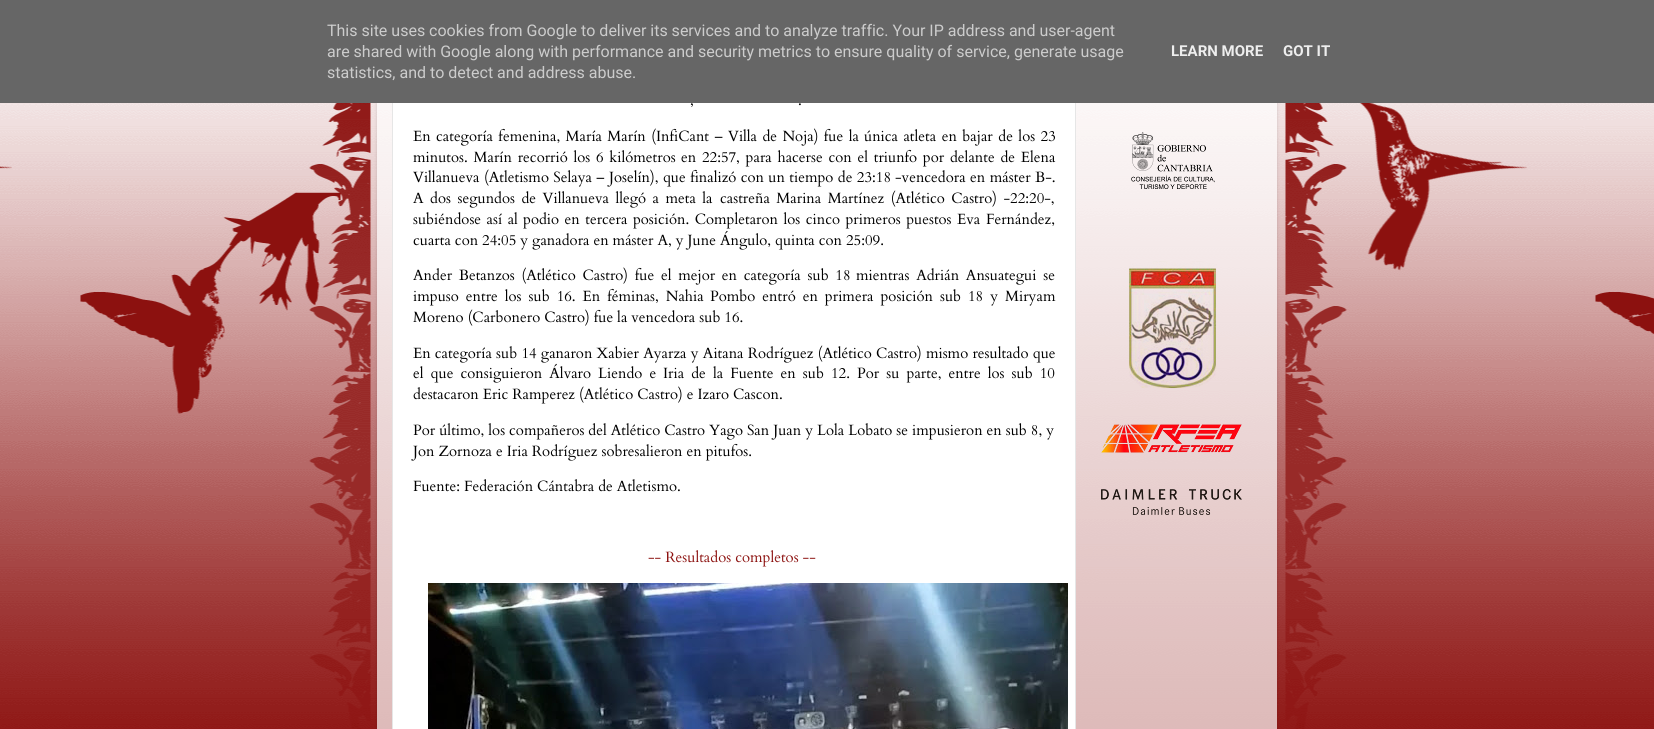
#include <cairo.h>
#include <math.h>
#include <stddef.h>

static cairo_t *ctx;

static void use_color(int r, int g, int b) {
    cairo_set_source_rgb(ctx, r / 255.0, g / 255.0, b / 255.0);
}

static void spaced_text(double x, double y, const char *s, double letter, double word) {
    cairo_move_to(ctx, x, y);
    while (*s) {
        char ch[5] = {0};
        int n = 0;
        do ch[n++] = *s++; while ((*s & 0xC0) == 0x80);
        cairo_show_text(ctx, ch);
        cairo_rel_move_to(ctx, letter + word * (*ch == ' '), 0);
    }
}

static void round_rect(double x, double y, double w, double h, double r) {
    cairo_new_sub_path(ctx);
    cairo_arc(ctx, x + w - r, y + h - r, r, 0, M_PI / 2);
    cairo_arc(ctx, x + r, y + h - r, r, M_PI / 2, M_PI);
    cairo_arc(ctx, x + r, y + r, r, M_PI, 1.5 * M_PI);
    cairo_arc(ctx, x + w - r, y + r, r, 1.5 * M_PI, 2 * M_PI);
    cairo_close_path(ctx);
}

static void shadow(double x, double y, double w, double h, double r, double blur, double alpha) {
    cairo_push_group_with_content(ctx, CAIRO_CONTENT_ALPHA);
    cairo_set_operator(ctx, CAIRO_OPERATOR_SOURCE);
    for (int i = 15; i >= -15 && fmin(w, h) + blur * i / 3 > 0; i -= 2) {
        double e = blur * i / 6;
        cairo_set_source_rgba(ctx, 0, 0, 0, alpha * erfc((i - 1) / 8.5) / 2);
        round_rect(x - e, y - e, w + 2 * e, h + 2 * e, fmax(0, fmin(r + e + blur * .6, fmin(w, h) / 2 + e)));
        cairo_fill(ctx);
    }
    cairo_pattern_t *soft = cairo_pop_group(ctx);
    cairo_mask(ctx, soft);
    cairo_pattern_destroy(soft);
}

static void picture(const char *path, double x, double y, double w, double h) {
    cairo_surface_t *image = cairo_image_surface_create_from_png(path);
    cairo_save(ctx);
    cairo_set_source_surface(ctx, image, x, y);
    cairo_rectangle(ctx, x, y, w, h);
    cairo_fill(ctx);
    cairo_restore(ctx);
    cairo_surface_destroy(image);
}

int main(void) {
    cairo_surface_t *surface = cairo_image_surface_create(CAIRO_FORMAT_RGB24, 1654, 729);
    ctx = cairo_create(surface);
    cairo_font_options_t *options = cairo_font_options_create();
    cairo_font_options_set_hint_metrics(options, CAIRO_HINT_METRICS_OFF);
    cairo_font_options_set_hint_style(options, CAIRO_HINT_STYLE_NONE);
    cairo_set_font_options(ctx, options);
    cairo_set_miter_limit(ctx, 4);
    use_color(140, 17, 15);
    cairo_paint(ctx);
    picture("img1.png", 0, 103, 1654, 626);
    cairo_save(ctx);
    cairo_set_fill_rule(ctx, CAIRO_FILL_RULE_EVEN_ODD);
    cairo_new_path(ctx);
    cairo_move_to(ctx, 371, 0);
    cairo_line_to(ctx, 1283, 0);
    cairo_line_to(ctx, 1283, 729);
    cairo_line_to(ctx, 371, 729);
    cairo_close_path(ctx);
    cairo_move_to(ctx, 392, -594);
    cairo_line_to(ctx, 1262, -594);
    cairo_curve_to(ctx, 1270.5, -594, 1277, -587.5, 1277, -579);
    cairo_line_to(ctx, 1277, 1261);
    cairo_curve_to(ctx, 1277, 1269.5, 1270.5, 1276, 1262, 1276);
    cairo_line_to(ctx, 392, 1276);
    cairo_curve_to(ctx, 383.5, 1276, 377, 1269.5, 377, 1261);
    cairo_line_to(ctx, 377, -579);
    cairo_curve_to(ctx, 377, -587.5, 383.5, -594, 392, -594);
    cairo_close_path(ctx);
    cairo_clip(ctx);
    use_color(0, 0, 0);
    shadow(377, -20, 900, 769, 15, 1.5, 0.15);
    cairo_restore(ctx);
    cairo_set_source_rgba(ctx, 1, 1, 1, 0.7);
    cairo_rectangle(ctx, 377, 103, 900, 626);
    cairo_fill(ctx);
    use_color(255, 255, 255);
    cairo_rectangle(ctx, 393, 103, 682, 626);
    cairo_fill(ctx);
    cairo_rectangle(ctx, 392.5, -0.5, 683, 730);
    use_color(230, 230, 230);
    cairo_set_line_width(ctx, 1);
    cairo_stroke(ctx);
    use_color(102, 102, 102);
    cairo_rectangle(ctx, 0, 0, 1654, 103);
    cairo_fill(ctx);
    cairo_select_font_face(ctx, "Roboto", CAIRO_FONT_SLANT_NORMAL, CAIRO_FONT_WEIGHT_NORMAL);
    cairo_set_font_size(ctx, 16);
    use_color(204, 204, 204);
    cairo_move_to(ctx, 327, 36);
    cairo_show_text(ctx, "This site uses cookies from Google to deliver its services and to analyze traffic. Your IP address and user-agent");
    cairo_move_to(ctx, 327, 57);
    cairo_show_text(ctx, "are shared with Google along with performance and security metrics to ensure quality of service, generate usage");
    cairo_move_to(ctx, 327, 78);
    cairo_show_text(ctx, "statistics, and to detect and address abuse.");
    cairo_select_font_face(ctx, "Roboto", CAIRO_FONT_SLANT_NORMAL, CAIRO_FONT_WEIGHT_BOLD);
    cairo_set_font_size(ctx, 15);
    use_color(238, 238, 238);
    cairo_move_to(ctx, 1171, 56);
    cairo_show_text(ctx, "LEARN MORE");
    cairo_move_to(ctx, 1283, 56);
    cairo_show_text(ctx, "GOT IT");
    cairo_select_font_face(ctx, "Cardo", CAIRO_FONT_SLANT_NORMAL, CAIRO_FONT_WEIGHT_NORMAL);
    cairo_set_font_size(ctx, 14.85);
    use_color(0, 0, 0);
    cairo_move_to(ctx, 690, 105);
    cairo_show_text(ctx, ",");
    cairo_move_to(ctx, 798, 105);
    cairo_show_text(ctx, ".");
    spaced_text(413, 141, "En categoría femenina, María Marín (InfiCant – Villa de Noja) fue la", 0, 1.4);
    spaced_text(864, 141, "única atleta en bajar de los 23", 0, 1.5);
    spaced_text(413, 162, "minutos. Marín recorrió los 6 kilómetros", 0, 1.75);
    spaced_text(681, 162, "en 22:57, para hacerse con el triunfo por delante de Elena", 0, 1.75);
    cairo_move_to(ctx, 413, 182);
    cairo_show_text(ctx, "Villanueva");
    spaced_text(484, 182, "(Atletismo Selaya – Joselín), que finalizó con un tiempo de 23:18", 0, 0.4);
    spaced_text(895, 182, "-vencedora en máster B-.", 0, 0.5);
    spaced_text(413, 203, "A dos segundos de Villanueva llegó a meta la", 0, 2.5);
    spaced_text(720, 203, "castreña Marina Martínez (Atlético Castro) -22:20-,", 0, 2.5);
    spaced_text(413, 224, "subiéndose así al", 0, 1.5);
    spaced_text(523, 224, "podio en tercera posición. Completaron los cinco primeros puestos Eva", 0, 1.5);
    cairo_move_to(ctx, 986, 224);
    cairo_show_text(ctx, "Fernández,");
    cairo_move_to(ctx, 413, 245);
    cairo_show_text(ctx, "cuarta con 24:05 y ganadora en máster A, y June Ángulo, quinta con 25:09.");
    spaced_text(413, 280, "Ander Betanzos (Atlético Castro) fue el mejor en categoría sub 18", 0, 2.75);
    spaced_text(856, 280, "mientras Adrián Ansuategui se", 0, 2.75);
    spaced_text(413, 301, "impuso entre los sub 16. En féminas, Nahia", 0, 3);
    spaced_text(710, 301, "Pombo entró en primera posición sub 18 y Miryam", 0, 3);
    cairo_move_to(ctx, 413, 322);
    cairo_show_text(ctx, "Moreno (Carbonero Castro) fue la vencedora sub 16.");
    spaced_text(413, 358, "En categoría sub 14 ganaron Xabier Ayarza y Aitana Rodríguez (Atlético Castro) mismo resultado que", 0, 0.25);
    spaced_text(413, 378, "el que consiguieron Álvaro Liendo e", 0, 3.1);
    spaced_text(663, 378, "Iria de la Fuente en sub 12. Por su parte, entre los sub 10", 0, 3.1);
    cairo_move_to(ctx, 413, 399);
    cairo_show_text(ctx, "destacaron Eric Ramperez (Atlético Castro) e Izaro Cascon.");
    cairo_move_to(ctx, 413, 435);
    cairo_show_text(ctx, "Por último, los compañeros del Atlético Castro Yago San Juan y Lola Lobato se impusieron en sub 8, y");
    cairo_move_to(ctx, 413, 456);
    cairo_show_text(ctx, "Jon Zornoza e Iria Rodríguez sobresalieron en pitufos.");
    cairo_move_to(ctx, 413, 491);
    cairo_show_text(ctx, "Fuente: Federación Cántabra de Atletismo.");
    use_color(140, 17, 15);
    cairo_move_to(ctx, 648, 562);
    cairo_show_text(ctx, "-- Resultados completos --");
    picture("img2.png", 428, 583, 640, 146);
    picture("img3.png", 1131, 132, 84, 57);
    picture("img4.png", 1129, 261, 88, 128);
    picture("img5.png", 1101, 424, 141, 29);
    picture("img6.png", 1101, 489, 141, 26);
    cairo_surface_write_to_png(surface, "result.png");
    cairo_font_options_destroy(options);
    cairo_destroy(ctx);
    cairo_surface_destroy(surface);
    return 0;
}
